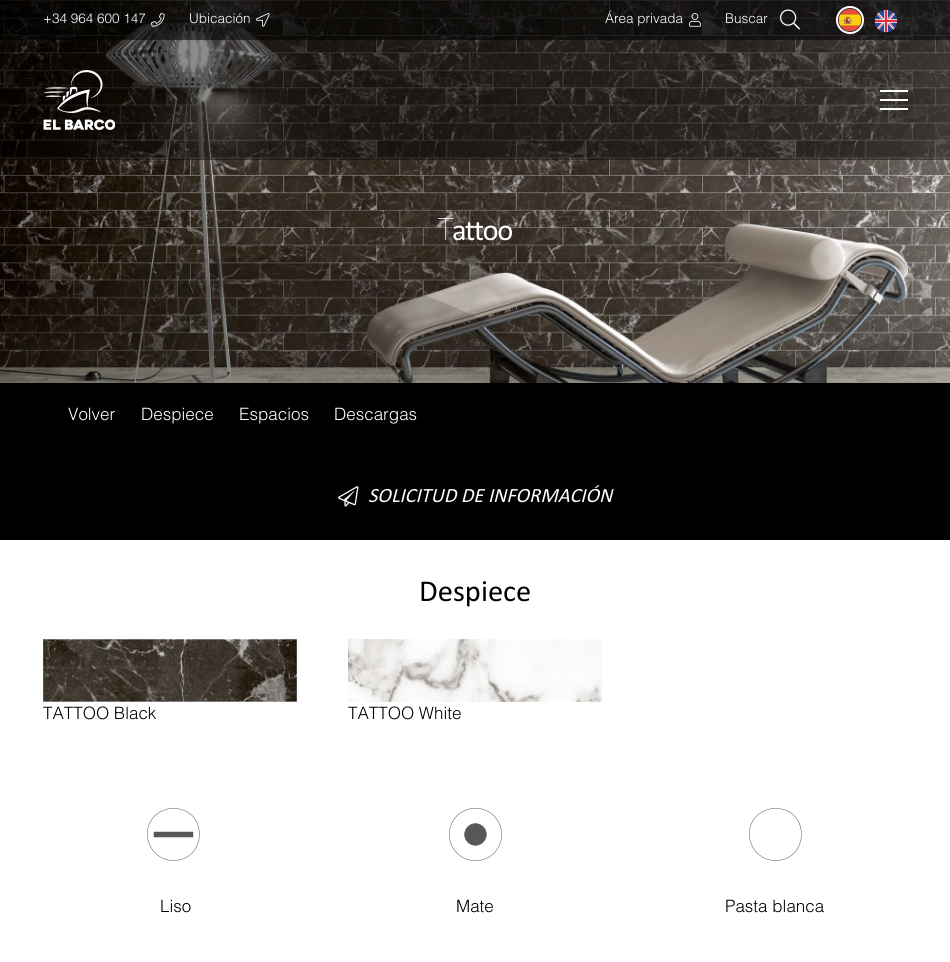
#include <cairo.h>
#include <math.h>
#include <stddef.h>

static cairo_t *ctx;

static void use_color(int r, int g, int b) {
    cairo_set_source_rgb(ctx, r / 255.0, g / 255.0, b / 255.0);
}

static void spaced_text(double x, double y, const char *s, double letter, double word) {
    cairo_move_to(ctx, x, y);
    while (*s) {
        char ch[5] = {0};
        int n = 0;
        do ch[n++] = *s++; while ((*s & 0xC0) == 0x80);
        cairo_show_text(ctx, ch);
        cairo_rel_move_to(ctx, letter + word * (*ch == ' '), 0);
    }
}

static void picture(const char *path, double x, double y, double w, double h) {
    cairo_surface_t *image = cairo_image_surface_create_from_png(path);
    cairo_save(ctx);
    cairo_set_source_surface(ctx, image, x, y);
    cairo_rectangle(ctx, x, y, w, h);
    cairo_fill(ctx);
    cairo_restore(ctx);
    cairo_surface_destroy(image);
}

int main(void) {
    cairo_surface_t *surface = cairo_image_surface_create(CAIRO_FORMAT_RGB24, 950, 962);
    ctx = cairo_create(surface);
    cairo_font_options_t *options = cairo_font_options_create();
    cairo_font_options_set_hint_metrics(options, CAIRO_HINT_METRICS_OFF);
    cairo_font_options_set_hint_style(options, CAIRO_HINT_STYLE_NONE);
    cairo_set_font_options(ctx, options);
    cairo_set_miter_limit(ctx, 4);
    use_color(0, 0, 0);
    cairo_paint(ctx);
    picture("img8.png", 0, 0, 950, 383);
    cairo_set_source_rgba(ctx, 0, 0, 0, 0.75);
    cairo_rectangle(ctx, 0, 0, 950, 40);
    cairo_fill(ctx);
    cairo_select_font_face(ctx, "Helvetica Light", CAIRO_FONT_SLANT_NORMAL, CAIRO_FONT_WEIGHT_NORMAL);
    cairo_set_font_size(ctx, 13.5);
    use_color(255, 255, 255);
    cairo_move_to(ctx, 43, 23);
    cairo_show_text(ctx, "+34 964 600 147");
    picture("img1.png", 151, 13, 14, 14);
    cairo_move_to(ctx, 189, 23);
    cairo_show_text(ctx, "Ubicación");
    picture("img2.png", 256, 13, 14, 14);
    cairo_move_to(ctx, 605, 23);
    cairo_show_text(ctx, "Área privada");
    picture("img3.png", 689, 13, 12, 14);
    cairo_move_to(ctx, 725, 23);
    cairo_show_text(ctx, "Buscar");
    picture("img4.png", 780, 9, 20, 21);
    picture("img5.png", 836, 6, 28, 28);
    cairo_arc(ctx, 850, 20, 13, 0, 2 * M_PI);
    cairo_stroke(ctx);
    picture("img6.png", 874, 9, 24, 24);
    cairo_set_source_rgba(ctx, 0, 0, 0, 0.45);
    cairo_rectangle(ctx, 0, 40, 950, 120);
    cairo_fill(ctx);
    picture("img7.png", 43, 70, 72, 60);
    use_color(255, 255, 255);
    cairo_rectangle(ctx, 880, 99, 28, 2);
    cairo_fill(ctx);
    cairo_rectangle(ctx, 880, 90, 28, 2);
    cairo_fill(ctx);
    cairo_rectangle(ctx, 880, 108, 28, 2);
    cairo_fill(ctx);
    cairo_select_font_face(ctx, "Noto Sans Thin", CAIRO_FONT_SLANT_NORMAL, CAIRO_FONT_WEIGHT_NORMAL);
    cairo_set_font_size(ctx, 30.5);
    spaced_text(438, 240, "T", -1.5, 0);
    cairo_select_font_face(ctx, "Calibri", CAIRO_FONT_SLANT_NORMAL, CAIRO_FONT_WEIGHT_NORMAL);
    spaced_text(452, 240, "attoo", -1.5, 0);
    cairo_set_source_rgba(ctx, 0, 0, 0, 0.15);
    cairo_new_path(ctx);
    cairo_move_to(ctx, 0, 316);
    cairo_curve_to(ctx, 475, 112, 475, 520, 950, 316);
    cairo_line_to(ctx, 950, 384);
    cairo_line_to(ctx, 0, 384);
    cairo_close_path(ctx);
    cairo_fill(ctx);
    cairo_select_font_face(ctx, "Helvetica Light", CAIRO_FONT_SLANT_NORMAL, CAIRO_FONT_WEIGHT_NORMAL);
    cairo_set_font_size(ctx, 17);
    use_color(255, 255, 255);
    cairo_move_to(ctx, 68, 420);
    cairo_show_text(ctx, "Volver");
    cairo_move_to(ctx, 141, 420);
    cairo_show_text(ctx, "Despiece");
    cairo_move_to(ctx, 239, 420);
    cairo_show_text(ctx, "Espacios");
    cairo_move_to(ctx, 334, 420);
    cairo_show_text(ctx, "Descargas");
    picture("img9.png", 338, 486, 21, 21);
    cairo_select_font_face(ctx, "Calibri", CAIRO_FONT_SLANT_ITALIC, CAIRO_FONT_WEIGHT_NORMAL);
    cairo_set_font_size(ctx, 20.4);
    cairo_move_to(ctx, 368, 502);
    cairo_show_text(ctx, "SOLICITUD DE INFORMACIÓN");
    cairo_rectangle(ctx, 0, 540, 950, 422);
    cairo_fill(ctx);
    cairo_select_font_face(ctx, "Calibri", CAIRO_FONT_SLANT_NORMAL, CAIRO_FONT_WEIGHT_NORMAL);
    cairo_set_font_size(ctx, 30.5);
    use_color(0, 0, 0);
    cairo_move_to(ctx, 419, 601);
    cairo_show_text(ctx, "Despiece");
    picture("img10.png", 43, 639, 254, 63);
    cairo_select_font_face(ctx, "Helvetica Light", CAIRO_FONT_SLANT_NORMAL, CAIRO_FONT_WEIGHT_NORMAL);
    cairo_set_font_size(ctx, 17);
    cairo_move_to(ctx, 43, 719);
    cairo_show_text(ctx, "TATTOO Black");
    picture("img11.png", 348, 639, 254, 63);
    cairo_move_to(ctx, 348, 719);
    cairo_show_text(ctx, "TATTOO White");
    cairo_new_path(ctx);
    cairo_move_to(ctx, 173.5, 860.5);
    cairo_curve_to(ctx, 207, 860.5, 208.5, 810, 175, 808.5);
    cairo_curve_to(ctx, 169.5, 808, 164.5, 809.5, 160, 812);
    cairo_curve_to(ctx, 137, 825.5, 147.5, 860.5, 173.5, 860.5);
    cairo_close_path(ctx);
    use_color(87, 87, 86);
    cairo_set_line_width(ctx, 0.5);
    cairo_stroke(ctx);
    cairo_rectangle(ctx, 154, 832, 39, 5);
    cairo_fill(ctx);
    cairo_new_path(ctx);
    cairo_move_to(ctx, 154, 837);
    cairo_line_to(ctx, 193, 837);
    cairo_line_to(ctx, 193, 832);
    cairo_line_to(ctx, 154, 832);
    cairo_close_path(ctx);
    cairo_stroke(ctx);
    use_color(0, 0, 0);
    cairo_move_to(ctx, 160, 912);
    cairo_show_text(ctx, "Liso");
    picture("img12.png", 449, 808, 53, 53);
    cairo_move_to(ctx, 456, 912);
    cairo_show_text(ctx, "Mate");
    cairo_new_path(ctx);
    cairo_move_to(ctx, 775.5, 860.5);
    cairo_curve_to(ctx, 809, 860.5, 810.5, 810, 777, 808.5);
    cairo_curve_to(ctx, 771.5, 808, 766.5, 809.5, 762, 812);
    cairo_curve_to(ctx, 739, 825.5, 749.5, 860.5, 775.5, 860.5);
    cairo_close_path(ctx);
    use_color(87, 87, 86);
    cairo_stroke(ctx);
    use_color(0, 0, 0);
    cairo_move_to(ctx, 725, 912);
    cairo_show_text(ctx, "Pasta blanca");
    cairo_surface_write_to_png(surface, "result.png");
    cairo_font_options_destroy(options);
    cairo_destroy(ctx);
    cairo_surface_destroy(surface);
    return 0;
}
